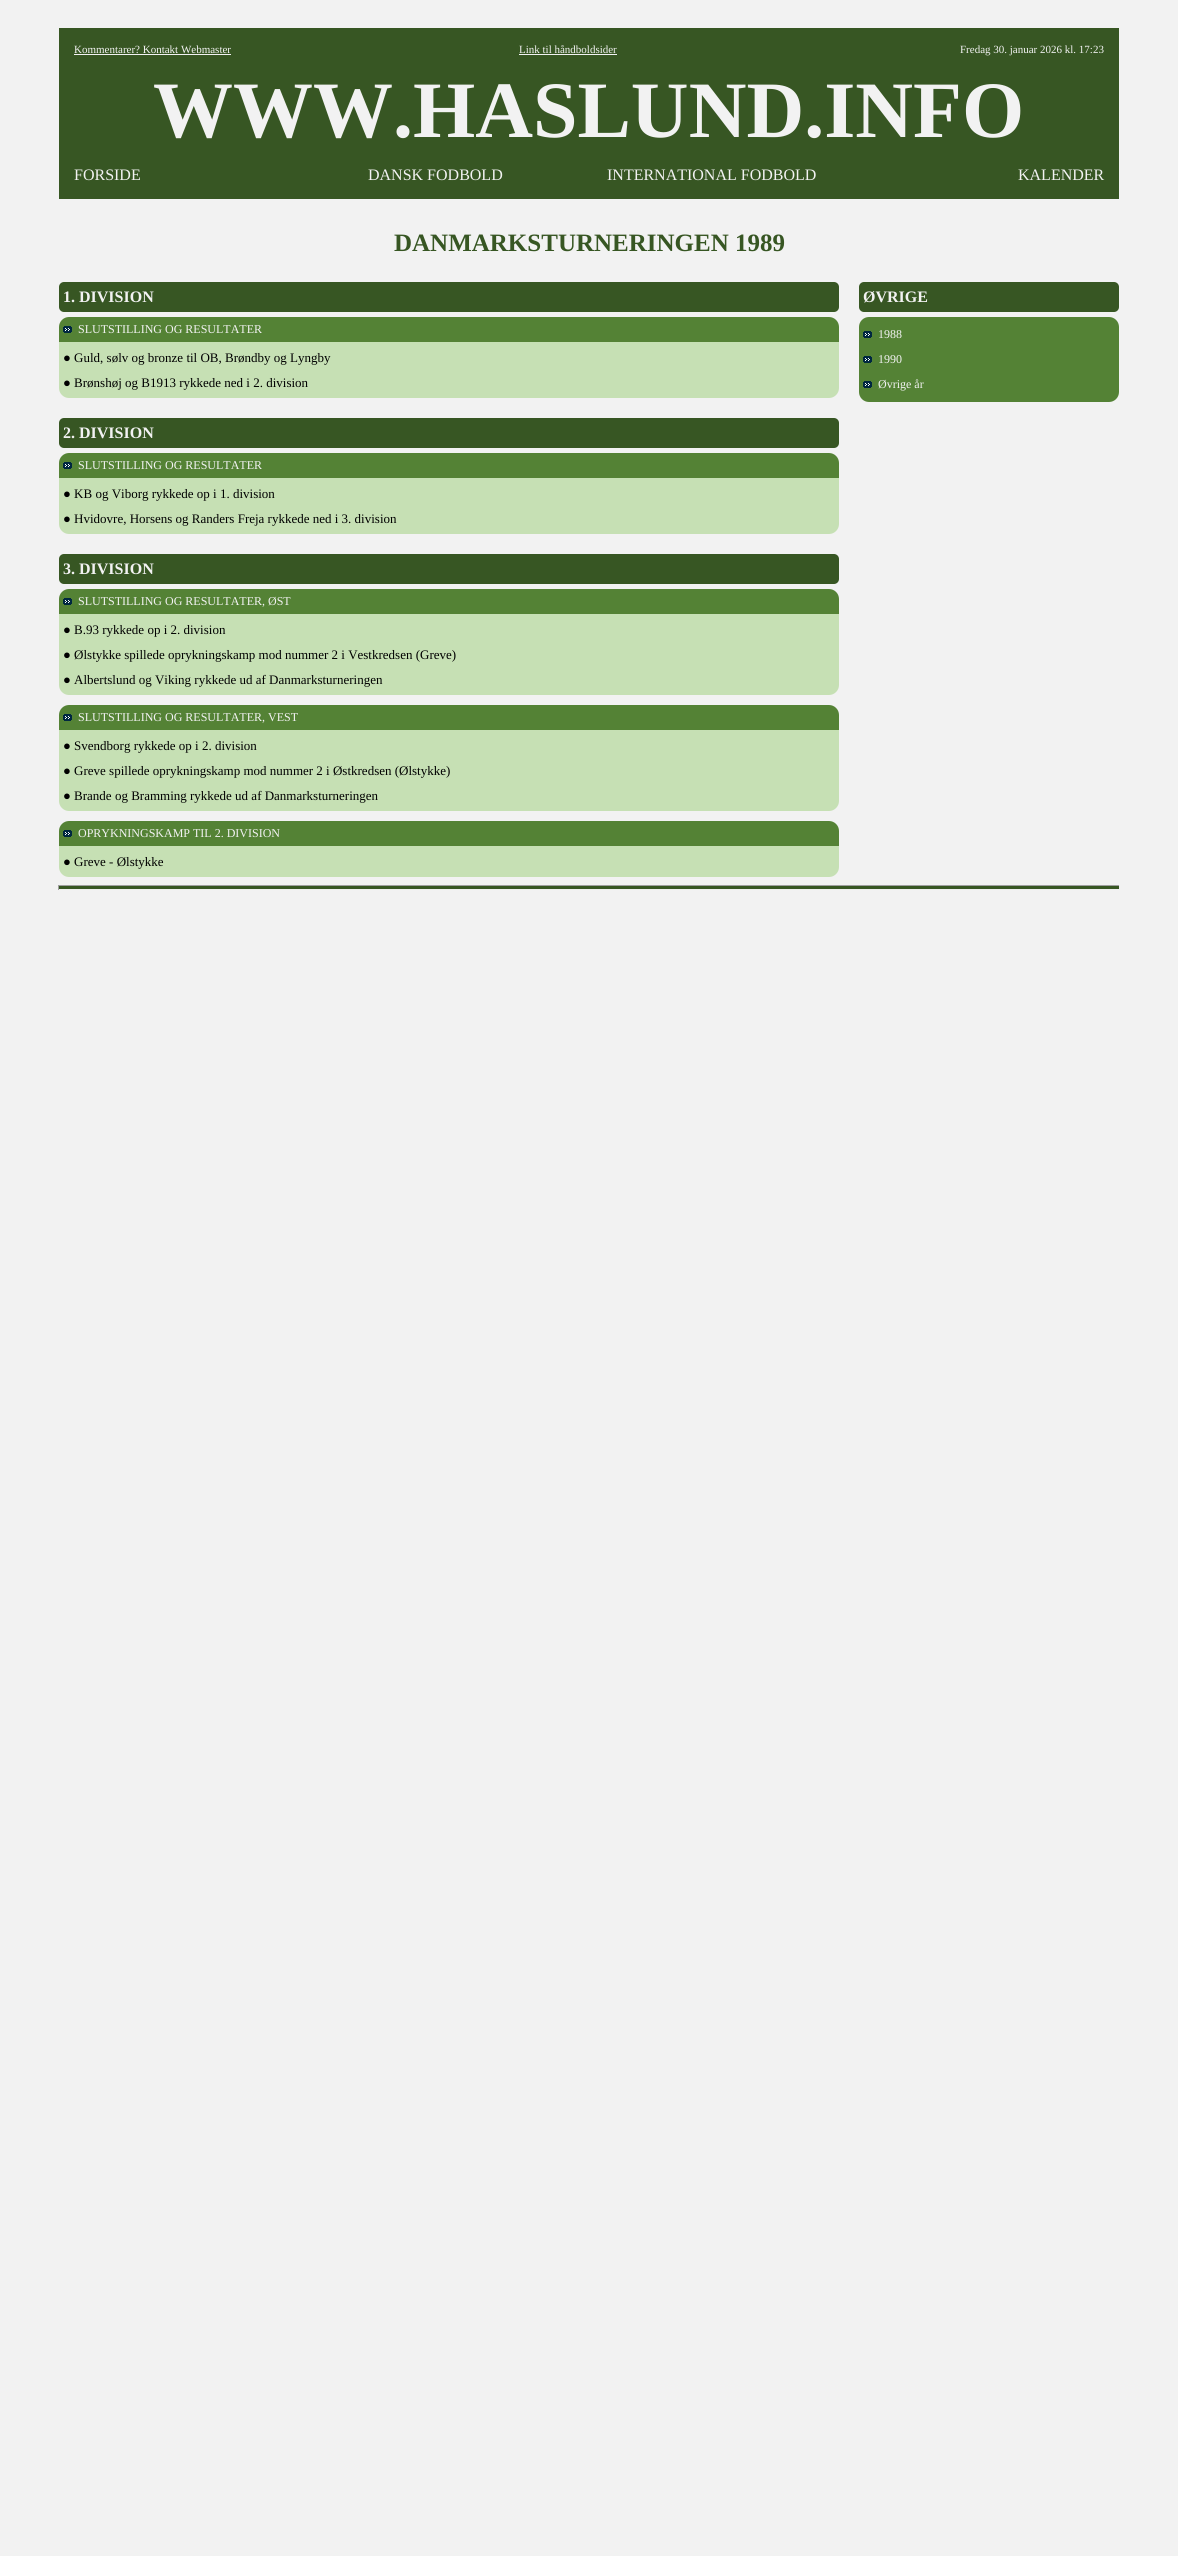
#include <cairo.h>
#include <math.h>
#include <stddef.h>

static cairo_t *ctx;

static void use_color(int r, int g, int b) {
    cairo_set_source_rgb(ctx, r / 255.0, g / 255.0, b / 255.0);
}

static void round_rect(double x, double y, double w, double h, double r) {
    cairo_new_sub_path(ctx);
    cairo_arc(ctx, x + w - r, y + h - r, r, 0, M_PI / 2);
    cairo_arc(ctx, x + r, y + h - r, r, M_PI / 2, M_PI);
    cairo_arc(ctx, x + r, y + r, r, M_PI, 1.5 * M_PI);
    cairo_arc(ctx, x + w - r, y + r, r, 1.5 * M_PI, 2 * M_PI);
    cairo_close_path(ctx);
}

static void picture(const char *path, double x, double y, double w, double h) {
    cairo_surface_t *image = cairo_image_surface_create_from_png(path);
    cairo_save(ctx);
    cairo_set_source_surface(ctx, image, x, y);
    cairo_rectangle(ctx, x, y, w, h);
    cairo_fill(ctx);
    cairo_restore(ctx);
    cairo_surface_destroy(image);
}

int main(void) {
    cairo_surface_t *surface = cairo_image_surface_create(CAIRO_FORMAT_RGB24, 1178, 2556);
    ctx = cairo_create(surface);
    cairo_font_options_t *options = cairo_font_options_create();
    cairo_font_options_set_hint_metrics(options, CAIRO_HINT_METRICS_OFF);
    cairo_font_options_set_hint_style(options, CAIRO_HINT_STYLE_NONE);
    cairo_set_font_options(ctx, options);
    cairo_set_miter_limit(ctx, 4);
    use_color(242, 242, 242);
    cairo_paint(ctx);
    use_color(55, 86, 35);
    cairo_rectangle(ctx, 59, 28, 1060, 171);
    cairo_fill(ctx);
    cairo_select_font_face(ctx, "Liberation Serif", CAIRO_FONT_SLANT_NORMAL, CAIRO_FONT_WEIGHT_NORMAL);
    cairo_set_font_size(ctx, 11);
    use_color(242, 242, 242);
    cairo_move_to(ctx, 74, 53);
    cairo_show_text(ctx, "Kommentarer? Kontakt Webmaster");
    cairo_rectangle(ctx, 74, 54, 157, 1);
    cairo_fill(ctx);
    cairo_move_to(ctx, 519, 53);
    cairo_show_text(ctx, "Link til håndboldsider");
    cairo_rectangle(ctx, 519, 54, 98, 1);
    cairo_fill(ctx);
    cairo_move_to(ctx, 960, 53);
    cairo_show_text(ctx, "Fredag 30. januar 2026 kl. 17:23");
    cairo_select_font_face(ctx, "Liberation Serif", CAIRO_FONT_SLANT_NORMAL, CAIRO_FONT_WEIGHT_BOLD);
    cairo_set_font_size(ctx, 80);
    cairo_move_to(ctx, 153, 137);
    cairo_show_text(ctx, "WWW.HASLUND.INFO");
    cairo_select_font_face(ctx, "Liberation Serif", CAIRO_FONT_SLANT_NORMAL, CAIRO_FONT_WEIGHT_NORMAL);
    cairo_set_font_size(ctx, 16);
    cairo_move_to(ctx, 74, 180);
    cairo_show_text(ctx, "FORSIDE");
    cairo_move_to(ctx, 368, 180);
    cairo_show_text(ctx, "DANSK FODBOLD");
    cairo_move_to(ctx, 607, 180);
    cairo_show_text(ctx, "INTERNATIONAL FODBOLD");
    cairo_move_to(ctx, 1018, 180);
    cairo_show_text(ctx, "KALENDER");
    cairo_select_font_face(ctx, "Liberation Serif", CAIRO_FONT_SLANT_NORMAL, CAIRO_FONT_WEIGHT_BOLD);
    cairo_set_font_size(ctx, 25);
    use_color(55, 86, 35);
    cairo_move_to(ctx, 394, 251);
    cairo_show_text(ctx, "DANMARKSTURNERINGEN 1989");
    round_rect(59, 282, 780, 30, 5);
    cairo_fill(ctx);
    cairo_set_font_size(ctx, 16);
    use_color(242, 242, 242);
    cairo_move_to(ctx, 63, 302);
    cairo_show_text(ctx, "1. DIVISION");
    use_color(84, 130, 53);
    cairo_new_path(ctx);
    cairo_move_to(ctx, 69, 317);
    cairo_line_to(ctx, 829, 317);
    cairo_curve_to(ctx, 834.5, 317, 839, 321.5, 839, 327);
    cairo_line_to(ctx, 839, 342);
    cairo_line_to(ctx, 59, 342);
    cairo_line_to(ctx, 59, 327);
    cairo_curve_to(ctx, 59, 321.5, 63.5, 317, 69, 317);
    cairo_close_path(ctx);
    cairo_fill(ctx);
    picture("img1.png", 63, 326, 9, 7);
    cairo_select_font_face(ctx, "Liberation Serif", CAIRO_FONT_SLANT_NORMAL, CAIRO_FONT_WEIGHT_NORMAL);
    cairo_set_font_size(ctx, 12);
    use_color(242, 242, 242);
    cairo_move_to(ctx, 78, 333);
    cairo_show_text(ctx, "SLUTSTILLING OG RESULTATER");
    use_color(198, 224, 180);
    cairo_new_path(ctx);
    cairo_move_to(ctx, 59, 342);
    cairo_line_to(ctx, 839, 342);
    cairo_line_to(ctx, 839, 388);
    cairo_curve_to(ctx, 839, 393.5, 834.5, 398, 829, 398);
    cairo_line_to(ctx, 69, 398);
    cairo_curve_to(ctx, 63.5, 398, 59, 393.5, 59, 388);
    cairo_close_path(ctx);
    cairo_fill(ctx);
    cairo_set_font_size(ctx, 13);
    use_color(0, 0, 0);
    cairo_move_to(ctx, 63, 362);
    cairo_show_text(ctx, "● Guld, sølv og bronze til OB, Brøndby og Lyngby");
    cairo_move_to(ctx, 63, 387);
    cairo_show_text(ctx, "● Brønshøj og B1913 rykkede ned i 2. division");
    use_color(55, 86, 35);
    round_rect(59, 418, 780, 30, 5);
    cairo_fill(ctx);
    cairo_select_font_face(ctx, "Liberation Serif", CAIRO_FONT_SLANT_NORMAL, CAIRO_FONT_WEIGHT_BOLD);
    cairo_set_font_size(ctx, 16);
    use_color(242, 242, 242);
    cairo_move_to(ctx, 63, 438);
    cairo_show_text(ctx, "2. DIVISION");
    use_color(84, 130, 53);
    cairo_new_path(ctx);
    cairo_move_to(ctx, 69, 453);
    cairo_line_to(ctx, 829, 453);
    cairo_curve_to(ctx, 834.5, 453, 839, 457.5, 839, 463);
    cairo_line_to(ctx, 839, 478);
    cairo_line_to(ctx, 59, 478);
    cairo_line_to(ctx, 59, 463);
    cairo_curve_to(ctx, 59, 457.5, 63.5, 453, 69, 453);
    cairo_close_path(ctx);
    cairo_fill(ctx);
    picture("img1.png", 63, 462, 9, 7);
    cairo_select_font_face(ctx, "Liberation Serif", CAIRO_FONT_SLANT_NORMAL, CAIRO_FONT_WEIGHT_NORMAL);
    cairo_set_font_size(ctx, 12);
    use_color(242, 242, 242);
    cairo_move_to(ctx, 78, 469);
    cairo_show_text(ctx, "SLUTSTILLING OG RESULTATER");
    use_color(198, 224, 180);
    cairo_new_path(ctx);
    cairo_move_to(ctx, 59, 478);
    cairo_line_to(ctx, 839, 478);
    cairo_line_to(ctx, 839, 524);
    cairo_curve_to(ctx, 839, 529.5, 834.5, 534, 829, 534);
    cairo_line_to(ctx, 69, 534);
    cairo_curve_to(ctx, 63.5, 534, 59, 529.5, 59, 524);
    cairo_close_path(ctx);
    cairo_fill(ctx);
    cairo_set_font_size(ctx, 13);
    use_color(0, 0, 0);
    cairo_move_to(ctx, 63, 498);
    cairo_show_text(ctx, "● KB og Viborg rykkede op i 1. division");
    cairo_move_to(ctx, 63, 523);
    cairo_show_text(ctx, "● Hvidovre, Horsens og Randers Freja rykkede ned i 3. division");
    use_color(55, 86, 35);
    round_rect(59, 554, 780, 30, 5);
    cairo_fill(ctx);
    cairo_select_font_face(ctx, "Liberation Serif", CAIRO_FONT_SLANT_NORMAL, CAIRO_FONT_WEIGHT_BOLD);
    cairo_set_font_size(ctx, 16);
    use_color(242, 242, 242);
    cairo_move_to(ctx, 63, 574);
    cairo_show_text(ctx, "3. DIVISION");
    use_color(84, 130, 53);
    cairo_new_path(ctx);
    cairo_move_to(ctx, 69, 589);
    cairo_line_to(ctx, 829, 589);
    cairo_curve_to(ctx, 834.5, 589, 839, 593.5, 839, 599);
    cairo_line_to(ctx, 839, 614);
    cairo_line_to(ctx, 59, 614);
    cairo_line_to(ctx, 59, 599);
    cairo_curve_to(ctx, 59, 593.5, 63.5, 589, 69, 589);
    cairo_close_path(ctx);
    cairo_fill(ctx);
    picture("img1.png", 63, 598, 9, 7);
    cairo_select_font_face(ctx, "Liberation Serif", CAIRO_FONT_SLANT_NORMAL, CAIRO_FONT_WEIGHT_NORMAL);
    cairo_set_font_size(ctx, 12);
    use_color(242, 242, 242);
    cairo_move_to(ctx, 78, 605);
    cairo_show_text(ctx, "SLUTSTILLING OG RESULTATER, ØST");
    use_color(198, 224, 180);
    cairo_new_path(ctx);
    cairo_move_to(ctx, 59, 614);
    cairo_line_to(ctx, 839, 614);
    cairo_line_to(ctx, 839, 685);
    cairo_curve_to(ctx, 839, 690.5, 834.5, 695, 829, 695);
    cairo_line_to(ctx, 69, 695);
    cairo_curve_to(ctx, 63.5, 695, 59, 690.5, 59, 685);
    cairo_close_path(ctx);
    cairo_fill(ctx);
    cairo_set_font_size(ctx, 13);
    use_color(0, 0, 0);
    cairo_move_to(ctx, 63, 634);
    cairo_show_text(ctx, "● B.93 rykkede op i 2. division");
    cairo_move_to(ctx, 63, 659);
    cairo_show_text(ctx, "● Ølstykke spillede oprykningskamp mod nummer 2 i Vestkredsen (Greve)");
    cairo_move_to(ctx, 63, 684);
    cairo_show_text(ctx, "● Albertslund og Viking rykkede ud af Danmarksturneringen");
    use_color(84, 130, 53);
    cairo_new_path(ctx);
    cairo_move_to(ctx, 69, 705);
    cairo_line_to(ctx, 829, 705);
    cairo_curve_to(ctx, 834.5, 705, 839, 709.5, 839, 715);
    cairo_line_to(ctx, 839, 730);
    cairo_line_to(ctx, 59, 730);
    cairo_line_to(ctx, 59, 715);
    cairo_curve_to(ctx, 59, 709.5, 63.5, 705, 69, 705);
    cairo_close_path(ctx);
    cairo_fill(ctx);
    picture("img1.png", 63, 714, 9, 7);
    cairo_set_font_size(ctx, 12);
    use_color(242, 242, 242);
    cairo_move_to(ctx, 78, 721);
    cairo_show_text(ctx, "SLUTSTILLING OG RESULTATER, VEST");
    use_color(198, 224, 180);
    cairo_new_path(ctx);
    cairo_move_to(ctx, 59, 730);
    cairo_line_to(ctx, 839, 730);
    cairo_line_to(ctx, 839, 801);
    cairo_curve_to(ctx, 839, 806.5, 834.5, 811, 829, 811);
    cairo_line_to(ctx, 69, 811);
    cairo_curve_to(ctx, 63.5, 811, 59, 806.5, 59, 801);
    cairo_close_path(ctx);
    cairo_fill(ctx);
    cairo_set_font_size(ctx, 13);
    use_color(0, 0, 0);
    cairo_move_to(ctx, 63, 750);
    cairo_show_text(ctx, "● Svendborg rykkede op i 2. division");
    cairo_move_to(ctx, 63, 775);
    cairo_show_text(ctx, "● Greve spillede oprykningskamp mod nummer 2 i Østkredsen (Ølstykke)");
    cairo_move_to(ctx, 63, 800);
    cairo_show_text(ctx, "● Brande og Bramming rykkede ud af Danmarksturneringen");
    use_color(84, 130, 53);
    cairo_new_path(ctx);
    cairo_move_to(ctx, 69, 821);
    cairo_line_to(ctx, 829, 821);
    cairo_curve_to(ctx, 834.5, 821, 839, 825.5, 839, 831);
    cairo_line_to(ctx, 839, 846);
    cairo_line_to(ctx, 59, 846);
    cairo_line_to(ctx, 59, 831);
    cairo_curve_to(ctx, 59, 825.5, 63.5, 821, 69, 821);
    cairo_close_path(ctx);
    cairo_fill(ctx);
    picture("img1.png", 63, 830, 9, 7);
    cairo_set_font_size(ctx, 12);
    use_color(242, 242, 242);
    cairo_move_to(ctx, 78, 837);
    cairo_show_text(ctx, "OPRYKNINGSKAMP TIL 2. DIVISION");
    use_color(198, 224, 180);
    cairo_new_path(ctx);
    cairo_move_to(ctx, 59, 846);
    cairo_line_to(ctx, 839, 846);
    cairo_line_to(ctx, 839, 867);
    cairo_curve_to(ctx, 839, 872.5, 834.5, 877, 829, 877);
    cairo_line_to(ctx, 69, 877);
    cairo_curve_to(ctx, 63.5, 877, 59, 872.5, 59, 867);
    cairo_close_path(ctx);
    cairo_fill(ctx);
    cairo_set_font_size(ctx, 13);
    use_color(0, 0, 0);
    cairo_move_to(ctx, 63, 866);
    cairo_show_text(ctx, "● Greve - Ølstykke");
    use_color(55, 86, 35);
    round_rect(859, 282, 260, 30, 5);
    cairo_fill(ctx);
    cairo_select_font_face(ctx, "Liberation Serif", CAIRO_FONT_SLANT_NORMAL, CAIRO_FONT_WEIGHT_BOLD);
    cairo_set_font_size(ctx, 16);
    use_color(242, 242, 242);
    cairo_move_to(ctx, 863, 302);
    cairo_show_text(ctx, "ØVRIGE");
    use_color(84, 130, 53);
    round_rect(859, 317, 260, 85, 10);
    cairo_fill(ctx);
    picture("img1.png", 863, 331, 9, 7);
    cairo_select_font_face(ctx, "Liberation Serif", CAIRO_FONT_SLANT_NORMAL, CAIRO_FONT_WEIGHT_NORMAL);
    cairo_set_font_size(ctx, 12);
    use_color(242, 242, 242);
    cairo_move_to(ctx, 878, 338);
    cairo_show_text(ctx, "1988");
    picture("img1.png", 863, 356, 9, 7);
    cairo_move_to(ctx, 878, 363);
    cairo_show_text(ctx, "1990");
    picture("img1.png", 863, 381, 9, 7);
    cairo_move_to(ctx, 878, 388);
    cairo_show_text(ctx, "Øvrige år");
    use_color(55, 86, 35);
    cairo_rectangle(ctx, 58, 886, 1062, 3);
    cairo_fill(ctx);
    use_color(159, 159, 159);
    cairo_rectangle(ctx, 58, 885, 1062, 1);
    cairo_fill(ctx);
    use_color(238, 238, 238);
    cairo_rectangle(ctx, 1119, 885, 1, 5);
    cairo_fill(ctx);
    cairo_rectangle(ctx, 58, 889, 1062, 1);
    cairo_fill(ctx);
    use_color(159, 159, 159);
    cairo_rectangle(ctx, 58, 885, 1, 5);
    cairo_fill(ctx);
    cairo_surface_write_to_png(surface, "result.png");
    cairo_font_options_destroy(options);
    cairo_destroy(ctx);
    cairo_surface_destroy(surface);
    return 0;
}
